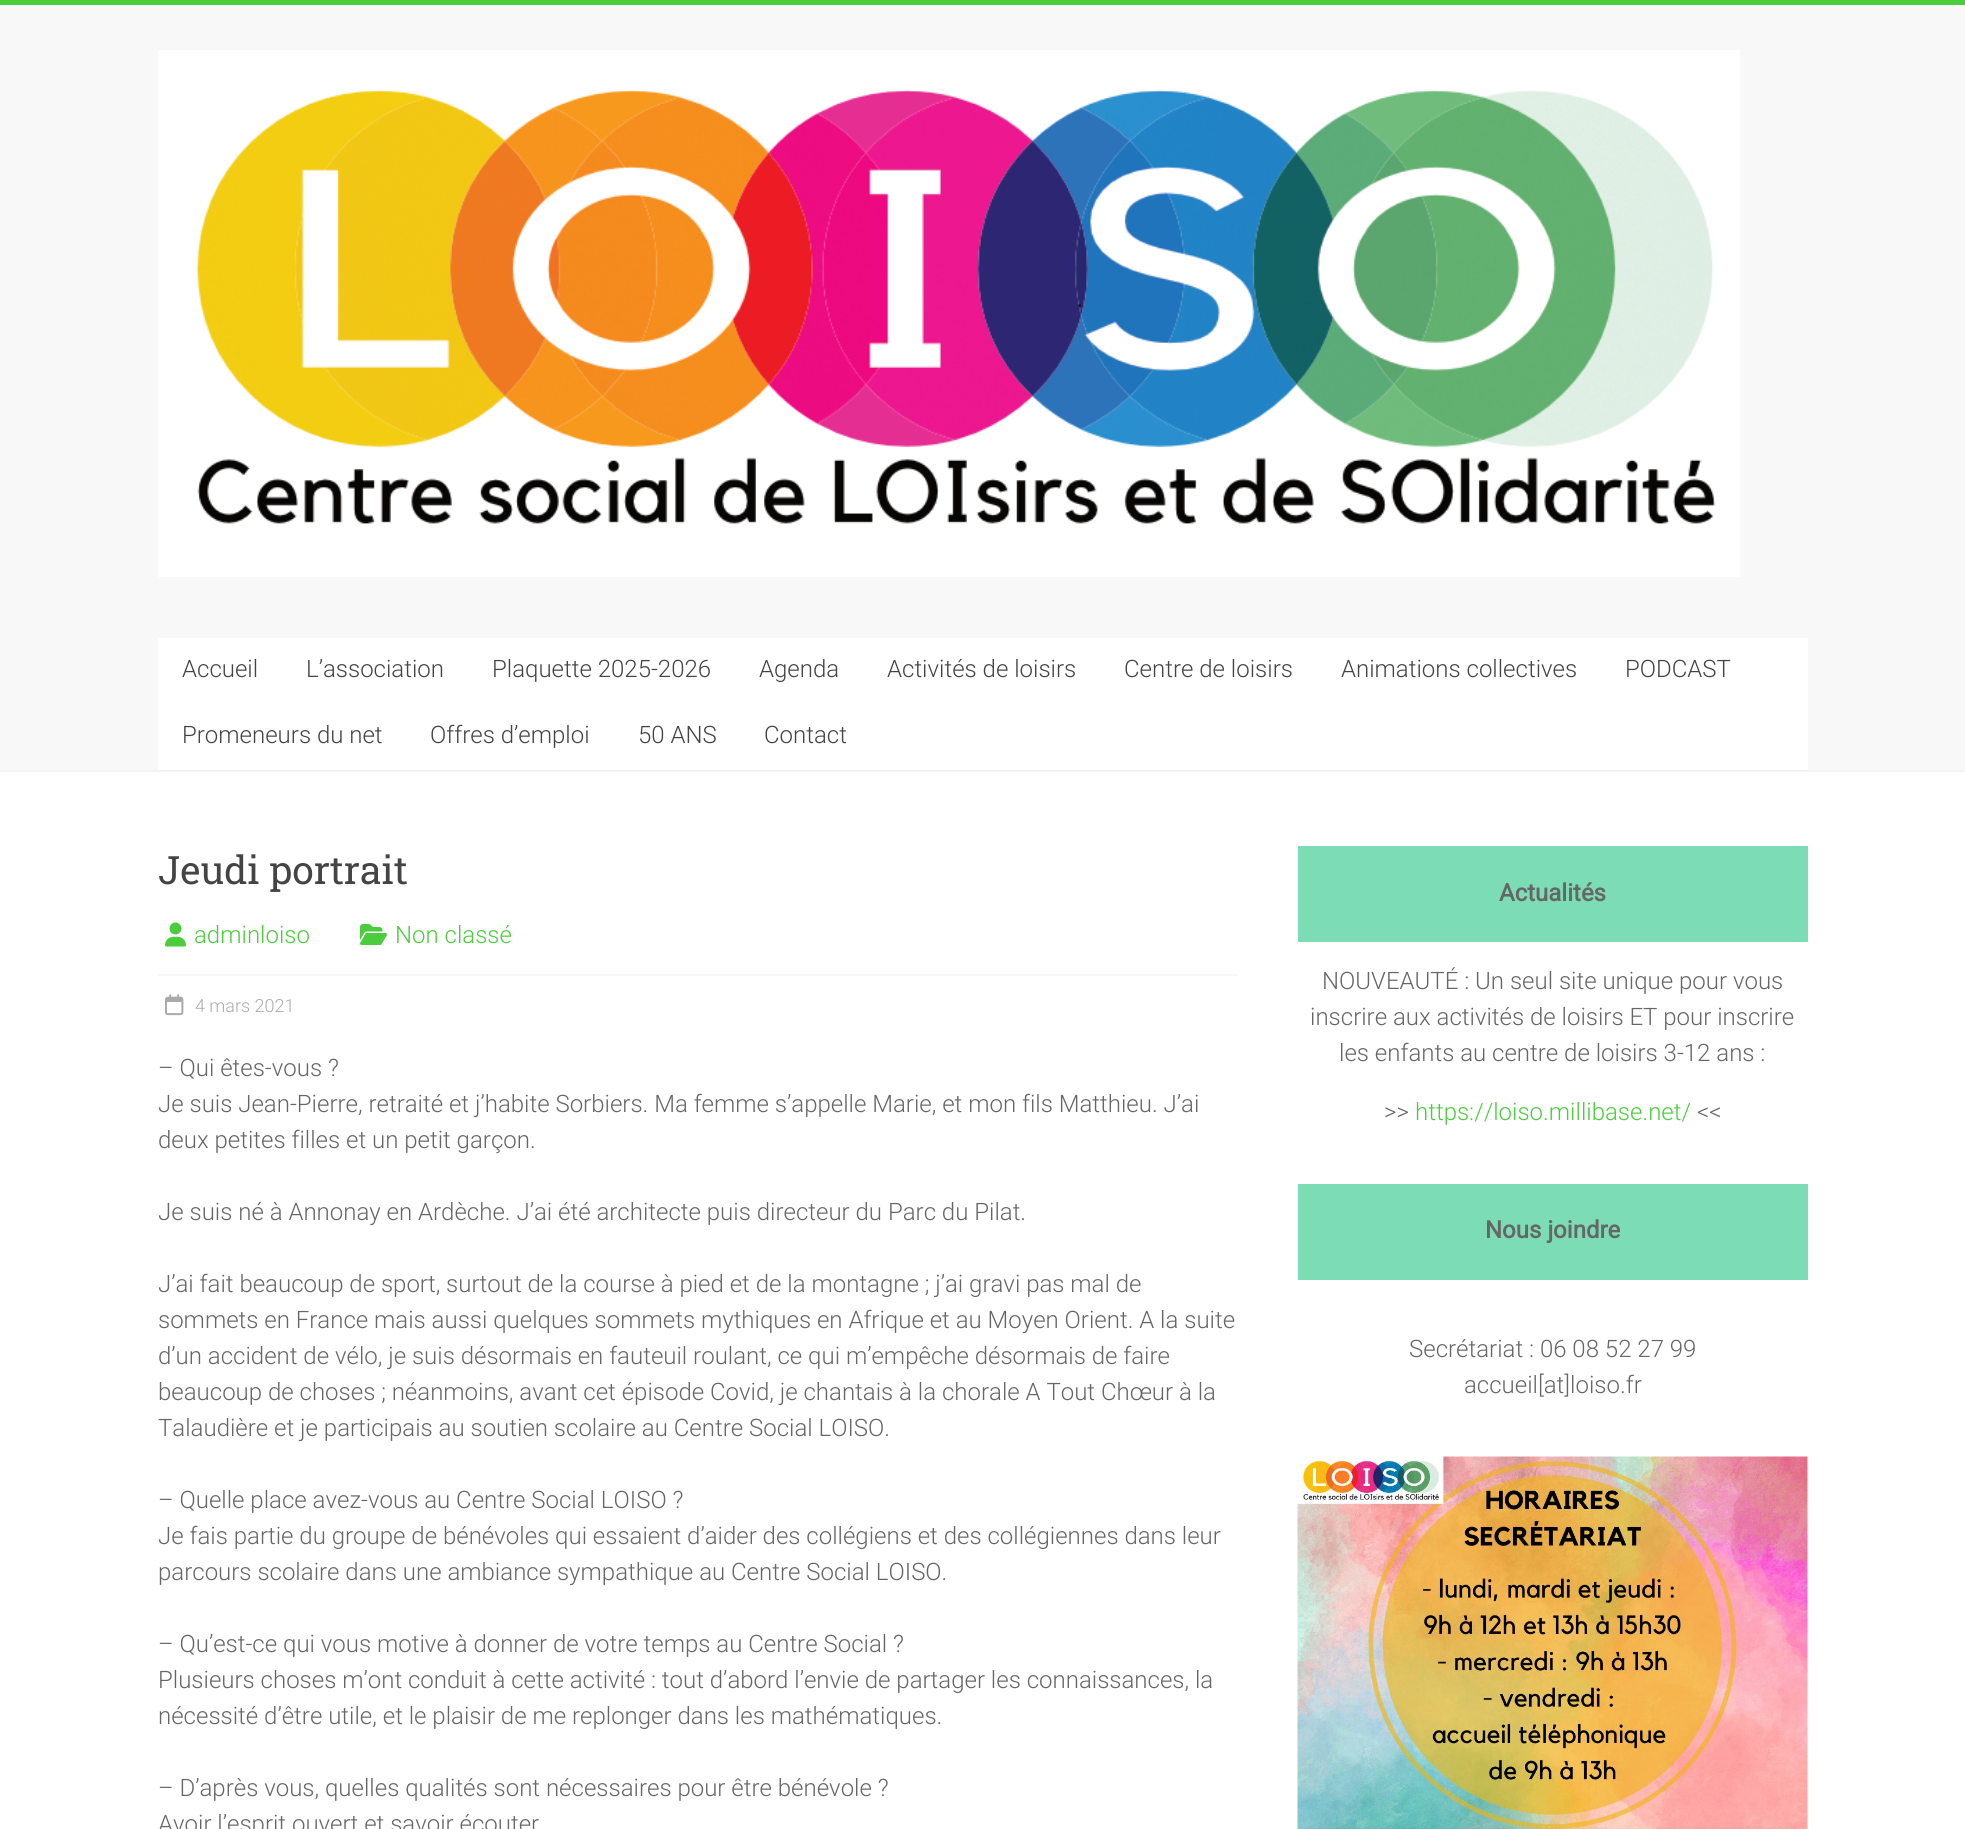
#include <cairo.h>
#include <math.h>
#include <stddef.h>

static cairo_t *ctx;

static void use_color(int r, int g, int b) {
    cairo_set_source_rgb(ctx, r / 255.0, g / 255.0, b / 255.0);
}

static void picture(const char *path, double x, double y, double w, double h) {
    cairo_surface_t *image = cairo_image_surface_create_from_png(path);
    cairo_save(ctx);
    cairo_set_source_surface(ctx, image, x, y);
    cairo_rectangle(ctx, x, y, w, h);
    cairo_fill(ctx);
    cairo_restore(ctx);
    cairo_surface_destroy(image);
}

int main(void) {
    cairo_surface_t *surface = cairo_image_surface_create(CAIRO_FORMAT_RGB24, 1965, 1829);
    ctx = cairo_create(surface);
    cairo_font_options_t *options = cairo_font_options_create();
    cairo_font_options_set_hint_metrics(options, CAIRO_HINT_METRICS_OFF);
    cairo_font_options_set_hint_style(options, CAIRO_HINT_STYLE_NONE);
    cairo_set_font_options(ctx, options);
    cairo_set_miter_limit(ctx, 4);
    use_color(255, 255, 255);
    cairo_paint(ctx);
    use_color(75, 204, 61);
    cairo_rectangle(ctx, 0, 0, 1965, 5);
    cairo_fill(ctx);
    use_color(248, 248, 248);
    cairo_rectangle(ctx, 0, 5, 1965, 765);
    cairo_fill(ctx);
    use_color(242, 242, 242);
    cairo_rectangle(ctx, 0, 770, 1965, 2);
    cairo_fill(ctx);
    picture("img1.png", 158, 50, 1582, 527);
    use_color(255, 255, 255);
    cairo_rectangle(ctx, 158, 638, 1650, 132);
    cairo_fill(ctx);
    cairo_select_font_face(ctx, "Roboto Light", CAIRO_FONT_SLANT_NORMAL, CAIRO_FONT_WEIGHT_NORMAL);
    cairo_set_font_size(ctx, 24);
    use_color(68, 68, 68);
    cairo_move_to(ctx, 182, 677);
    cairo_show_text(ctx, "Accueil");
    cairo_move_to(ctx, 306, 677);
    cairo_show_text(ctx, "L’association");
    cairo_move_to(ctx, 492, 677);
    cairo_show_text(ctx, "Plaquette 2025-2026");
    cairo_move_to(ctx, 759, 677);
    cairo_show_text(ctx, "Agenda");
    cairo_move_to(ctx, 887, 677);
    cairo_show_text(ctx, "Activités de loisirs");
    cairo_move_to(ctx, 1124, 677);
    cairo_show_text(ctx, "Centre de loisirs");
    cairo_move_to(ctx, 1341, 677);
    cairo_show_text(ctx, "Animations collectives");
    cairo_move_to(ctx, 1625, 677);
    cairo_show_text(ctx, "PODCAST");
    cairo_move_to(ctx, 182, 743);
    cairo_show_text(ctx, "Promeneurs du net");
    cairo_move_to(ctx, 430, 743);
    cairo_show_text(ctx, "Offres d’emploi");
    cairo_move_to(ctx, 638, 743);
    cairo_show_text(ctx, "50 ANS");
    cairo_move_to(ctx, 764, 743);
    cairo_show_text(ctx, "Contact");
    cairo_select_font_face(ctx, "Roboto Slab", CAIRO_FONT_SLANT_NORMAL, CAIRO_FONT_WEIGHT_NORMAL);
    cairo_set_font_size(ctx, 39);
    cairo_move_to(ctx, 158, 884);
    cairo_show_text(ctx, "Jeudi portrait");
    picture("img2.png", 165, 922, 21, 25);
    cairo_select_font_face(ctx, "Roboto Light", CAIRO_FONT_SLANT_NORMAL, CAIRO_FONT_WEIGHT_NORMAL);
    cairo_set_font_size(ctx, 24);
    use_color(75, 204, 61);
    cairo_move_to(ctx, 194, 943);
    cairo_show_text(ctx, "adminloiso");
    picture("img3.png", 360, 924, 27, 21);
    cairo_move_to(ctx, 395, 943);
    cairo_show_text(ctx, "Non classé");
    use_color(248, 248, 248);
    cairo_rectangle(ctx, 158, 974, 1080, 2);
    cairo_fill(ctx);
    picture("img4.png", 165, 994, 19, 22);
    cairo_set_font_size(ctx, 18);
    use_color(170, 170, 170);
    cairo_move_to(ctx, 195, 1012);
    cairo_show_text(ctx, "4 mars 2021");
    cairo_set_font_size(ctx, 24);
    use_color(102, 102, 102);
    cairo_move_to(ctx, 158, 1076);
    cairo_show_text(ctx, "– Qui êtes-vous ?");
    cairo_move_to(ctx, 158, 1112);
    cairo_show_text(ctx, "Je suis Jean-Pierre, retraité et j’habite Sorbiers. Ma femme s’appelle Marie, et mon fils Matthieu. J’ai");
    cairo_move_to(ctx, 158, 1148);
    cairo_show_text(ctx, "deux petites filles et un petit garçon.");
    cairo_move_to(ctx, 158, 1220);
    cairo_show_text(ctx, "Je suis né à Annonay en Ardèche. J’ai été architecte puis directeur du Parc du Pilat.");
    cairo_move_to(ctx, 158, 1292);
    cairo_show_text(ctx, "J’ai fait beaucoup de sport, surtout de la course à pied et de la montagne ; j’ai gravi pas mal de");
    cairo_move_to(ctx, 158, 1328);
    cairo_show_text(ctx, "sommets en France mais aussi quelques sommets mythiques en Afrique et au Moyen Orient. A la suite");
    cairo_move_to(ctx, 158, 1364);
    cairo_show_text(ctx, "d’un accident de vélo, je suis désormais en fauteuil roulant, ce qui m’empêche désormais de faire");
    cairo_move_to(ctx, 158, 1400);
    cairo_show_text(ctx, "beaucoup de choses ; néanmoins, avant cet épisode Covid, je chantais à la chorale A Tout Chœur à la");
    cairo_move_to(ctx, 158, 1436);
    cairo_show_text(ctx, "Talaudière et je participais au soutien scolaire au Centre Social LOISO.");
    cairo_move_to(ctx, 158, 1508);
    cairo_show_text(ctx, "– Quelle place avez-vous au Centre Social LOISO ?");
    cairo_move_to(ctx, 158, 1544);
    cairo_show_text(ctx, "Je fais partie du groupe de bénévoles qui essaient d’aider des collégiens et des collégiennes dans leur");
    cairo_move_to(ctx, 158, 1580);
    cairo_show_text(ctx, "parcours scolaire dans une ambiance sympathique au Centre Social LOISO.");
    cairo_move_to(ctx, 158, 1652);
    cairo_show_text(ctx, "– Qu’est-ce qui vous motive à donner de votre temps au Centre Social ?");
    cairo_move_to(ctx, 158, 1688);
    cairo_show_text(ctx, "Plusieurs choses m’ont conduit à cette activité : tout d’abord l’envie de partager les connaissances, la");
    cairo_move_to(ctx, 158, 1724);
    cairo_show_text(ctx, "nécessité d’être utile, et le plaisir de me replonger dans les mathématiques.");
    cairo_move_to(ctx, 158, 1796);
    cairo_show_text(ctx, "– D’après vous, quelles qualités sont nécessaires pour être bénévole ?");
    cairo_move_to(ctx, 158, 1832);
    cairo_show_text(ctx, "Avoir l’esprit ouvert et savoir écouter");
    use_color(123, 220, 181);
    cairo_rectangle(ctx, 1298, 846, 510, 96);
    cairo_fill(ctx);
    cairo_select_font_face(ctx, "Roboto", CAIRO_FONT_SLANT_NORMAL, CAIRO_FONT_WEIGHT_BOLD);
    use_color(102, 102, 102);
    cairo_move_to(ctx, 1499, 901);
    cairo_show_text(ctx, "Actualités");
    cairo_select_font_face(ctx, "Roboto Light", CAIRO_FONT_SLANT_NORMAL, CAIRO_FONT_WEIGHT_NORMAL);
    cairo_move_to(ctx, 1322, 989);
    cairo_show_text(ctx, "NOUVEAUTÉ : Un seul site unique pour vous");
    cairo_move_to(ctx, 1310, 1025);
    cairo_show_text(ctx, "inscrire aux activités de loisirs ET pour inscrire");
    cairo_move_to(ctx, 1339, 1061);
    cairo_show_text(ctx, "les enfants au centre de loisirs 3-12 ans :");
    cairo_move_to(ctx, 1384, 1120);
    cairo_show_text(ctx, ">>");
    use_color(75, 204, 61);
    cairo_move_to(ctx, 1415, 1120);
    cairo_show_text(ctx, "https://loiso.millibase.net/");
    use_color(102, 102, 102);
    cairo_move_to(ctx, 1697, 1120);
    cairo_show_text(ctx, "<<");
    use_color(123, 220, 181);
    cairo_rectangle(ctx, 1298, 1184, 510, 96);
    cairo_fill(ctx);
    cairo_select_font_face(ctx, "Roboto", CAIRO_FONT_SLANT_NORMAL, CAIRO_FONT_WEIGHT_BOLD);
    use_color(102, 102, 102);
    cairo_move_to(ctx, 1485, 1238);
    cairo_show_text(ctx, "Nous joindre");
    cairo_select_font_face(ctx, "Roboto Light", CAIRO_FONT_SLANT_NORMAL, CAIRO_FONT_WEIGHT_NORMAL);
    cairo_move_to(ctx, 1409, 1357);
    cairo_show_text(ctx, "Secrétariat : 06 08 52 27 99");
    cairo_move_to(ctx, 1464, 1393);
    cairo_show_text(ctx, "accueil[at]loiso.fr");
    picture("img5.png", 1297, 1456, 511, 373);
    cairo_surface_write_to_png(surface, "result.png");
    cairo_font_options_destroy(options);
    cairo_destroy(ctx);
    cairo_surface_destroy(surface);
    return 0;
}
